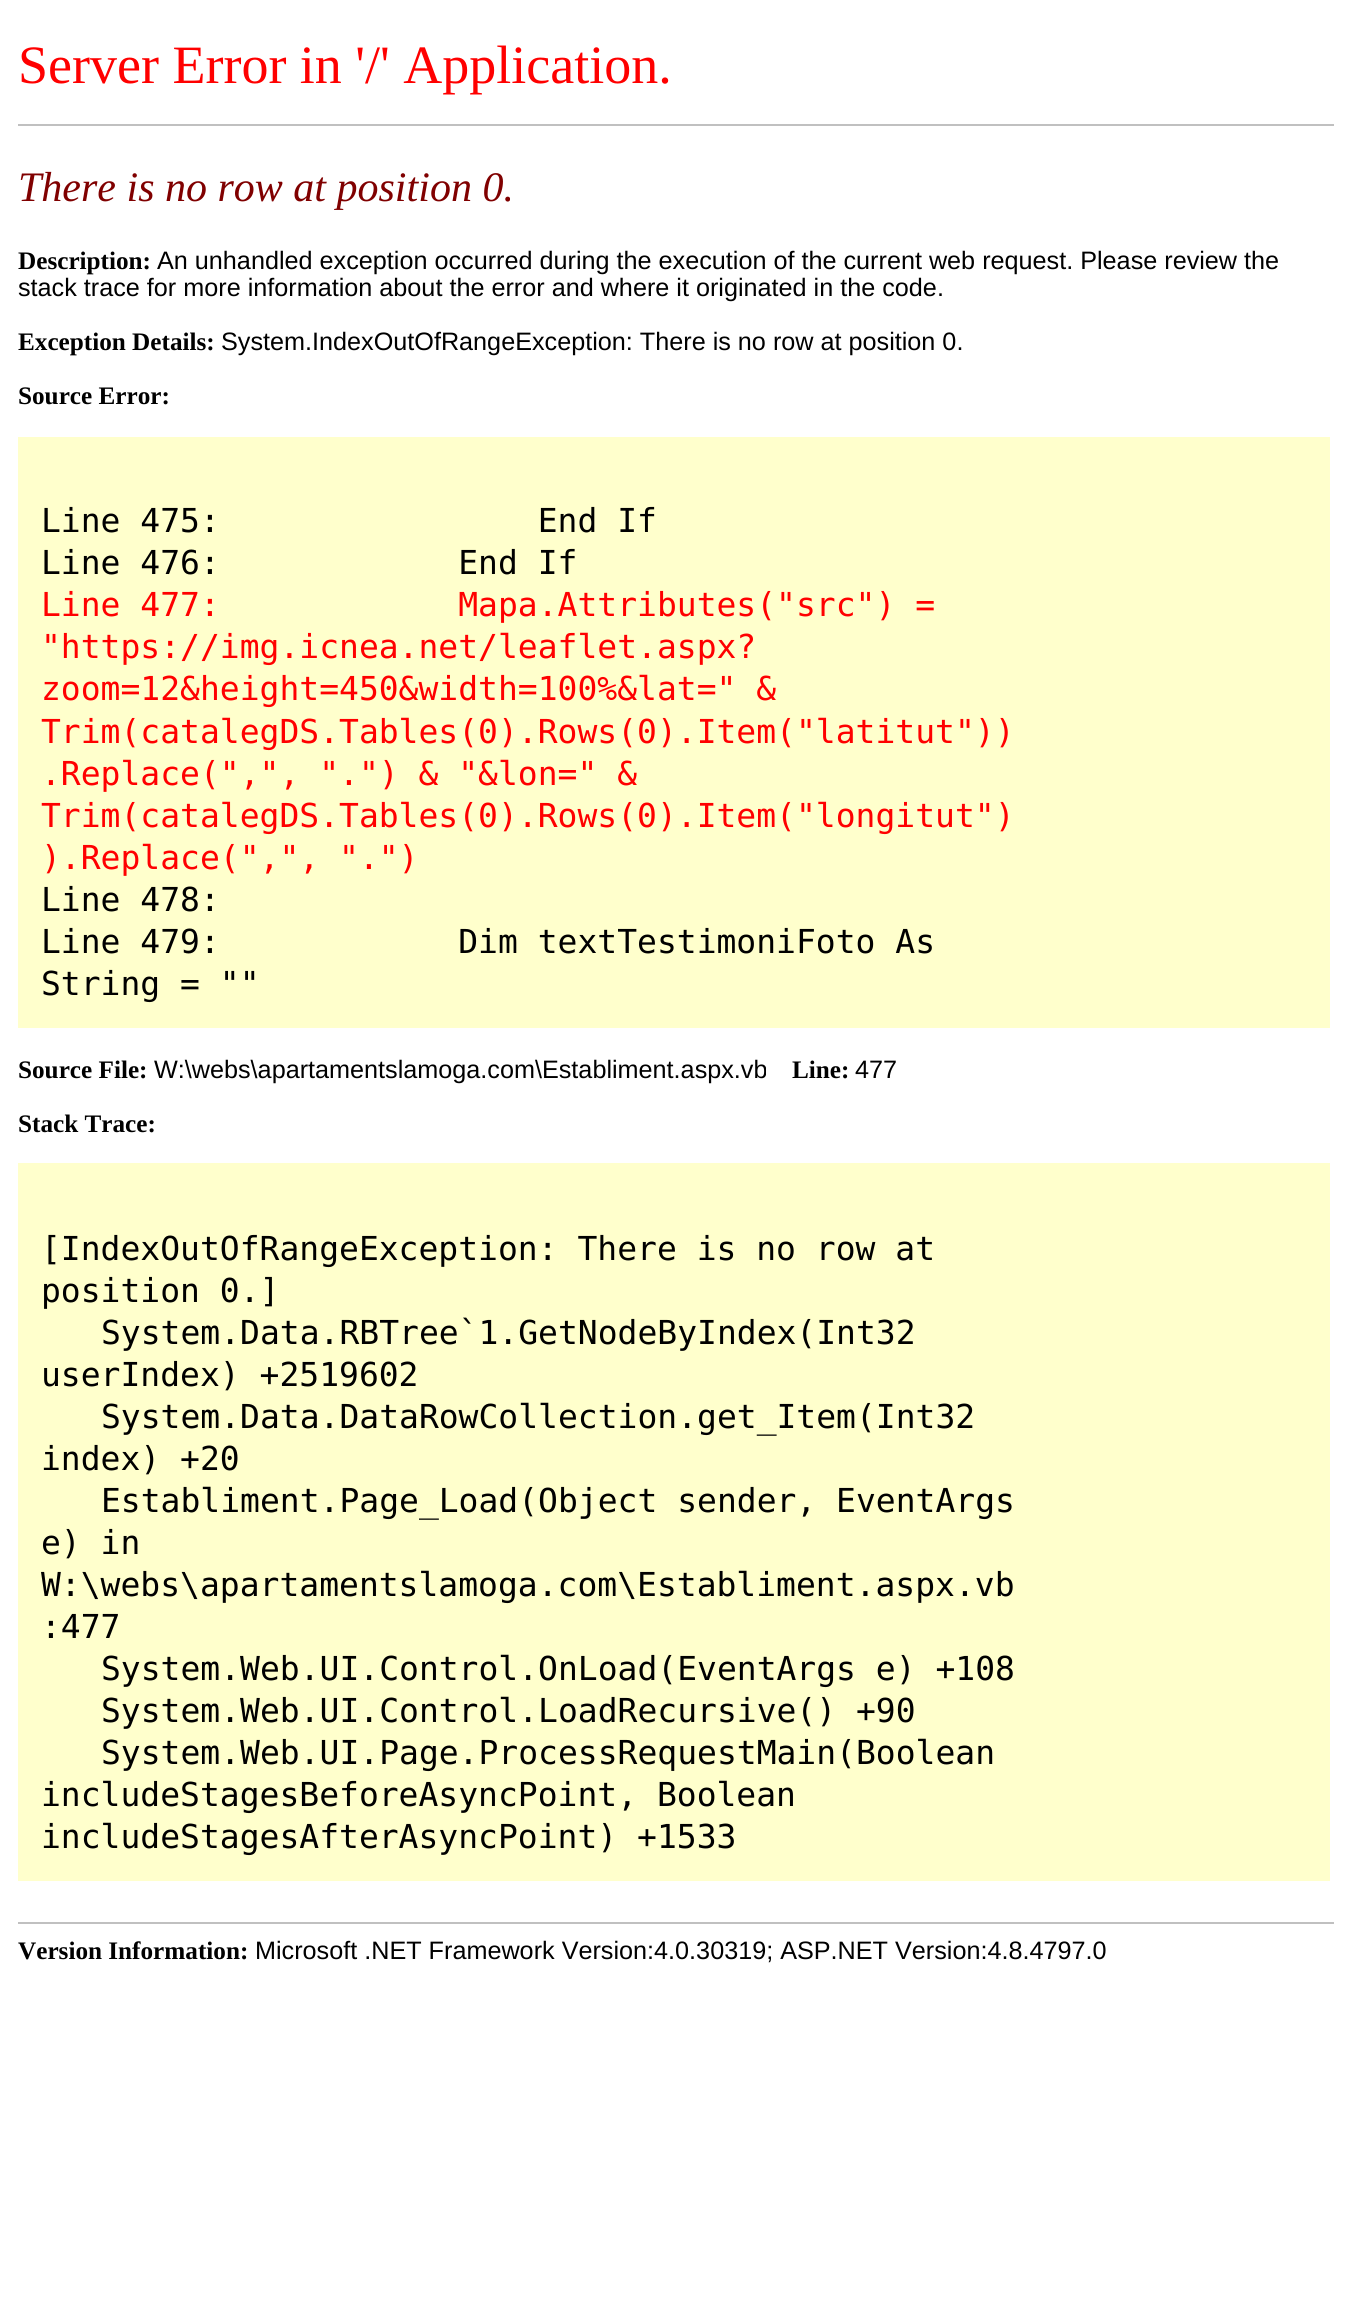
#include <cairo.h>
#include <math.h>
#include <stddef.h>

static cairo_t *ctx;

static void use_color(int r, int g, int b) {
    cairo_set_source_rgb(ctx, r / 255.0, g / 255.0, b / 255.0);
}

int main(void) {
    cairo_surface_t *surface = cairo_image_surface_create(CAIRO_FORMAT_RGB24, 1347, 2320);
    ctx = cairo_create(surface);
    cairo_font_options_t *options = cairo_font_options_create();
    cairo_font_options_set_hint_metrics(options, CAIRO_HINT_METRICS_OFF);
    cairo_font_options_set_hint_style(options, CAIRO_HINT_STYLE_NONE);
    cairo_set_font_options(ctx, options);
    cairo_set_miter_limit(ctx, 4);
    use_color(255, 255, 255);
    cairo_paint(ctx);
    cairo_select_font_face(ctx, "Liberation Serif", CAIRO_FONT_SLANT_NORMAL, CAIRO_FONT_WEIGHT_NORMAL);
    cairo_set_font_size(ctx, 54);
    use_color(255, 0, 0);
    cairo_move_to(ctx, 18, 83);
    cairo_show_text(ctx, "Server Error in '/' Application.");
    use_color(192, 192, 192);
    cairo_rectangle(ctx, 18, 124, 1316, 2);
    cairo_fill(ctx);
    cairo_select_font_face(ctx, "Liberation Serif", CAIRO_FONT_SLANT_ITALIC, CAIRO_FONT_WEIGHT_NORMAL);
    cairo_set_font_size(ctx, 42);
    use_color(128, 0, 0);
    cairo_move_to(ctx, 18, 201);
    cairo_show_text(ctx, "There is no row at position 0.");
    cairo_select_font_face(ctx, "Liberation Serif", CAIRO_FONT_SLANT_NORMAL, CAIRO_FONT_WEIGHT_BOLD);
    cairo_set_font_size(ctx, 25.2);
    use_color(0, 0, 0);
    cairo_move_to(ctx, 18, 269);
    cairo_show_text(ctx, "Description:");
    cairo_select_font_face(ctx, "Liberation Sans", CAIRO_FONT_SLANT_NORMAL, CAIRO_FONT_WEIGHT_NORMAL);
    cairo_move_to(ctx, 157, 269);
    cairo_show_text(ctx, "An unhandled exception occurred during the execution of the current web request. Please review the");
    cairo_move_to(ctx, 18, 296);
    cairo_show_text(ctx, "stack trace for more information about the error and where it originated in the code.");
    cairo_select_font_face(ctx, "Liberation Serif", CAIRO_FONT_SLANT_NORMAL, CAIRO_FONT_WEIGHT_BOLD);
    cairo_move_to(ctx, 18, 350);
    cairo_show_text(ctx, "Exception Details:");
    cairo_select_font_face(ctx, "Liberation Sans", CAIRO_FONT_SLANT_NORMAL, CAIRO_FONT_WEIGHT_NORMAL);
    cairo_move_to(ctx, 221, 350);
    cairo_show_text(ctx, "System.IndexOutOfRangeException: There is no row at position 0.");
    cairo_select_font_face(ctx, "Liberation Serif", CAIRO_FONT_SLANT_NORMAL, CAIRO_FONT_WEIGHT_BOLD);
    cairo_move_to(ctx, 18, 404);
    cairo_show_text(ctx, "Source Error:");
    use_color(255, 255, 204);
    cairo_rectangle(ctx, 18, 437, 1312, 591);
    cairo_fill(ctx);
    cairo_select_font_face(ctx, "DejaVu Sans Mono", CAIRO_FONT_SLANT_NORMAL, CAIRO_FONT_WEIGHT_NORMAL);
    cairo_set_font_size(ctx, 33);
    use_color(0, 0, 0);
    cairo_move_to(ctx, 41, 532);
    cairo_show_text(ctx, "Line 475:                End If");
    cairo_move_to(ctx, 41, 574);
    cairo_show_text(ctx, "Line 476:            End If");
    use_color(255, 0, 0);
    cairo_move_to(ctx, 41, 616);
    cairo_show_text(ctx, "Line 477:            Mapa.Attributes(\"src\") =");
    cairo_move_to(ctx, 41, 658);
    cairo_show_text(ctx, "\"https://img.icnea.net/leaflet.aspx?");
    cairo_move_to(ctx, 41, 700);
    cairo_show_text(ctx, "zoom=12&height=450&width=100%&lat=\" &");
    cairo_move_to(ctx, 41, 743);
    cairo_show_text(ctx, "Trim(catalegDS.Tables(0).Rows(0).Item(\"latitut\"))");
    cairo_move_to(ctx, 41, 785);
    cairo_show_text(ctx, ".Replace(\",\", \".\") & \"&lon=\" &");
    cairo_move_to(ctx, 41, 827);
    cairo_show_text(ctx, "Trim(catalegDS.Tables(0).Rows(0).Item(\"longitut\")");
    cairo_move_to(ctx, 41, 869);
    cairo_show_text(ctx, ").Replace(\",\", \".\")");
    use_color(0, 0, 0);
    cairo_move_to(ctx, 41, 911);
    cairo_show_text(ctx, "Line 478:");
    cairo_move_to(ctx, 41, 953);
    cairo_show_text(ctx, "Line 479:            Dim textTestimoniFoto As");
    cairo_move_to(ctx, 41, 995);
    cairo_show_text(ctx, "String = \"\"");
    cairo_select_font_face(ctx, "Liberation Serif", CAIRO_FONT_SLANT_NORMAL, CAIRO_FONT_WEIGHT_BOLD);
    cairo_set_font_size(ctx, 25.2);
    cairo_move_to(ctx, 18, 1078);
    cairo_show_text(ctx, "Source File:");
    cairo_select_font_face(ctx, "Liberation Sans", CAIRO_FONT_SLANT_NORMAL, CAIRO_FONT_WEIGHT_NORMAL);
    cairo_move_to(ctx, 154, 1078);
    cairo_show_text(ctx, "W:\\webs\\apartamentslamoga.com\\Establiment.aspx.vb");
    cairo_select_font_face(ctx, "Liberation Serif", CAIRO_FONT_SLANT_NORMAL, CAIRO_FONT_WEIGHT_BOLD);
    cairo_move_to(ctx, 792, 1078);
    cairo_show_text(ctx, "Line:");
    cairo_select_font_face(ctx, "Liberation Sans", CAIRO_FONT_SLANT_NORMAL, CAIRO_FONT_WEIGHT_NORMAL);
    cairo_move_to(ctx, 855, 1078);
    cairo_show_text(ctx, "477");
    cairo_select_font_face(ctx, "Liberation Serif", CAIRO_FONT_SLANT_NORMAL, CAIRO_FONT_WEIGHT_BOLD);
    cairo_move_to(ctx, 18, 1132);
    cairo_show_text(ctx, "Stack Trace:");
    use_color(255, 255, 204);
    cairo_rectangle(ctx, 18, 1163, 1312, 718);
    cairo_fill(ctx);
    cairo_select_font_face(ctx, "DejaVu Sans Mono", CAIRO_FONT_SLANT_NORMAL, CAIRO_FONT_WEIGHT_NORMAL);
    cairo_set_font_size(ctx, 33);
    use_color(0, 0, 0);
    cairo_move_to(ctx, 41, 1260);
    cairo_show_text(ctx, "[IndexOutOfRangeException: There is no row at");
    cairo_move_to(ctx, 41, 1302);
    cairo_show_text(ctx, "position 0.]");
    cairo_move_to(ctx, 101, 1344);
    cairo_show_text(ctx, "System.Data.RBTree`1.GetNodeByIndex(Int32");
    cairo_move_to(ctx, 41, 1386);
    cairo_show_text(ctx, "userIndex) +2519602");
    cairo_move_to(ctx, 101, 1428);
    cairo_show_text(ctx, "System.Data.DataRowCollection.get_Item(Int32");
    cairo_move_to(ctx, 41, 1470);
    cairo_show_text(ctx, "index) +20");
    cairo_move_to(ctx, 101, 1512);
    cairo_show_text(ctx, "Establiment.Page_Load(Object sender, EventArgs");
    cairo_move_to(ctx, 41, 1554);
    cairo_show_text(ctx, "e) in");
    cairo_move_to(ctx, 41, 1596);
    cairo_show_text(ctx, "W:\\webs\\apartamentslamoga.com\\Establiment.aspx.vb");
    cairo_move_to(ctx, 41, 1638);
    cairo_show_text(ctx, ":477");
    cairo_move_to(ctx, 101, 1680);
    cairo_show_text(ctx, "System.Web.UI.Control.OnLoad(EventArgs e) +108");
    cairo_move_to(ctx, 101, 1722);
    cairo_show_text(ctx, "System.Web.UI.Control.LoadRecursive() +90");
    cairo_move_to(ctx, 101, 1764);
    cairo_show_text(ctx, "System.Web.UI.Page.ProcessRequestMain(Boolean");
    cairo_move_to(ctx, 41, 1806);
    cairo_show_text(ctx, "includeStagesBeforeAsyncPoint, Boolean");
    cairo_move_to(ctx, 41, 1848);
    cairo_show_text(ctx, "includeStagesAfterAsyncPoint) +1533");
    use_color(192, 192, 192);
    cairo_rectangle(ctx, 18, 1922, 1316, 2);
    cairo_fill(ctx);
    cairo_select_font_face(ctx, "Liberation Serif", CAIRO_FONT_SLANT_NORMAL, CAIRO_FONT_WEIGHT_BOLD);
    cairo_set_font_size(ctx, 25.2);
    use_color(0, 0, 0);
    cairo_move_to(ctx, 18, 1959);
    cairo_show_text(ctx, "Version Information:");
    cairo_select_font_face(ctx, "Liberation Sans", CAIRO_FONT_SLANT_NORMAL, CAIRO_FONT_WEIGHT_NORMAL);
    cairo_move_to(ctx, 255, 1959);
    cairo_show_text(ctx, "Microsoft .NET Framework Version:4.0.30319; ASP.NET Version:4.8.4797.0");
    cairo_surface_write_to_png(surface, "result.png");
    cairo_font_options_destroy(options);
    cairo_destroy(ctx);
    cairo_surface_destroy(surface);
    return 0;
}
